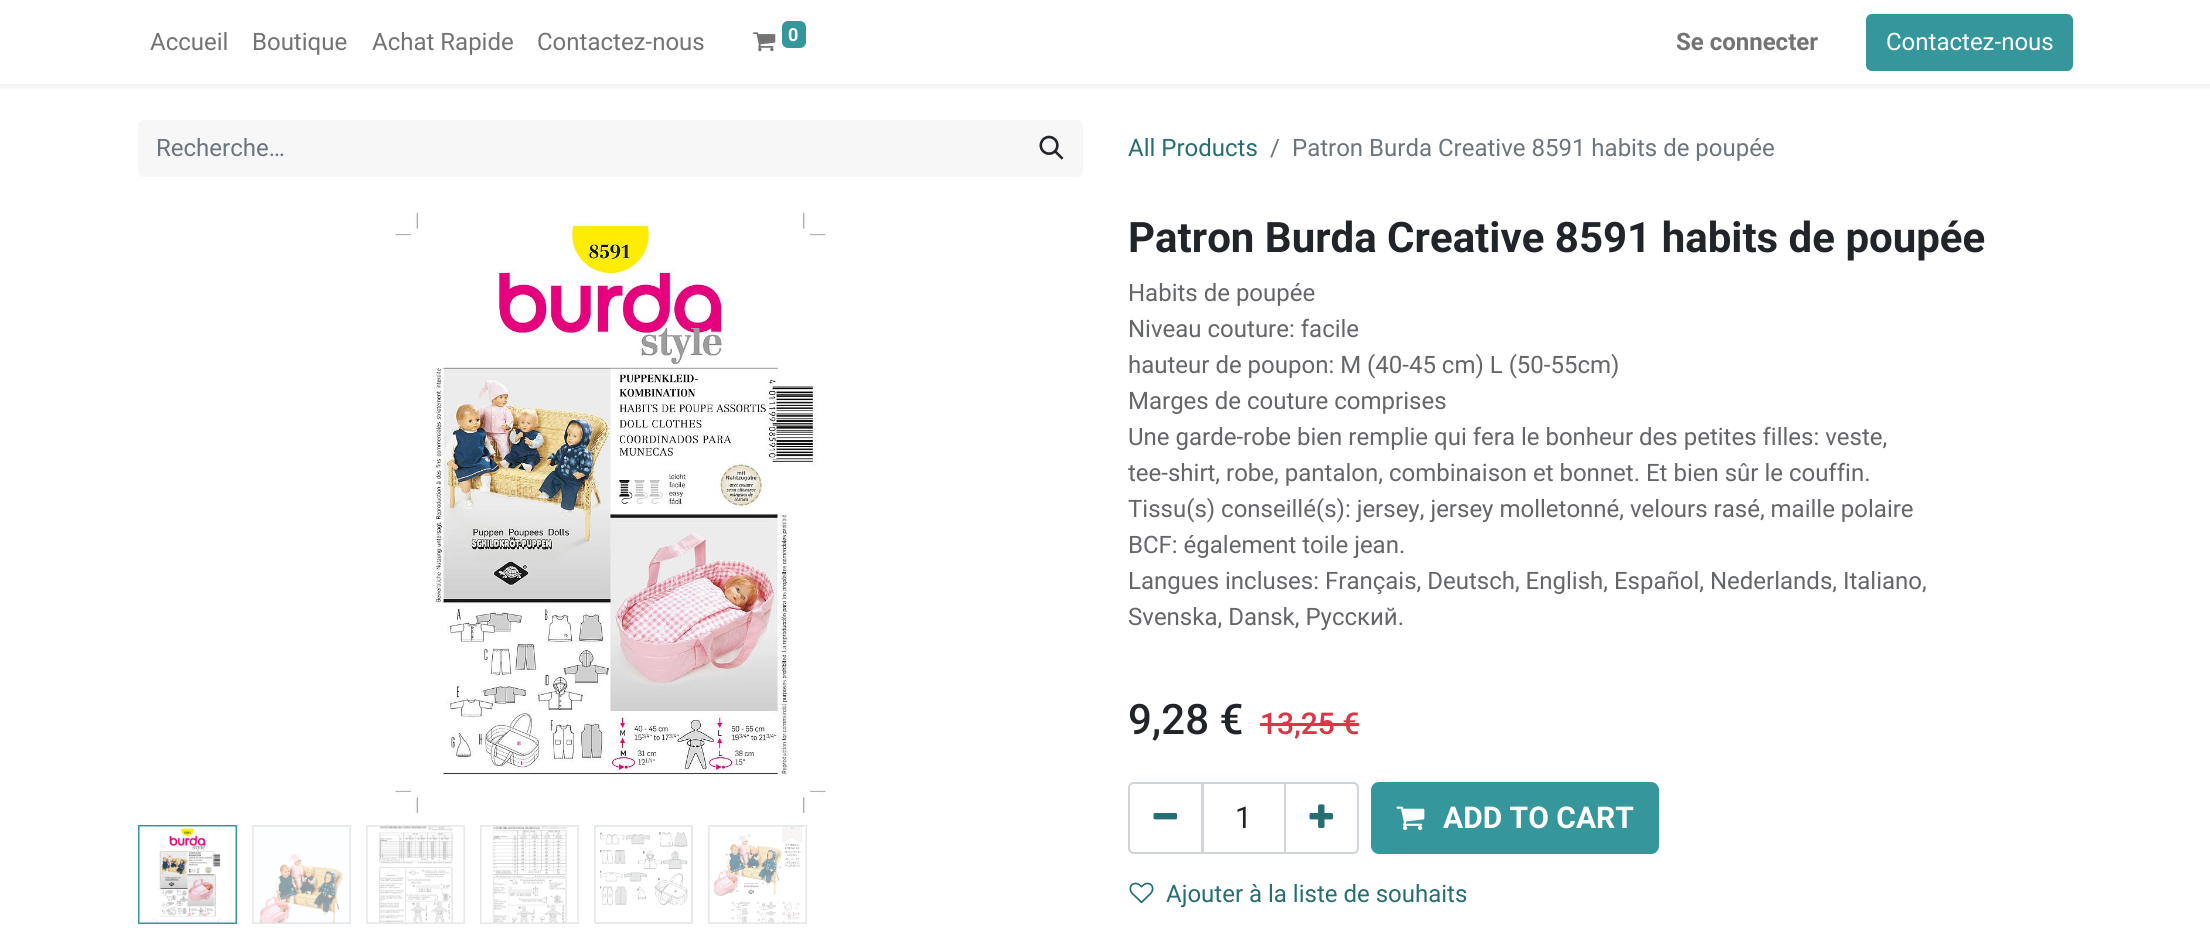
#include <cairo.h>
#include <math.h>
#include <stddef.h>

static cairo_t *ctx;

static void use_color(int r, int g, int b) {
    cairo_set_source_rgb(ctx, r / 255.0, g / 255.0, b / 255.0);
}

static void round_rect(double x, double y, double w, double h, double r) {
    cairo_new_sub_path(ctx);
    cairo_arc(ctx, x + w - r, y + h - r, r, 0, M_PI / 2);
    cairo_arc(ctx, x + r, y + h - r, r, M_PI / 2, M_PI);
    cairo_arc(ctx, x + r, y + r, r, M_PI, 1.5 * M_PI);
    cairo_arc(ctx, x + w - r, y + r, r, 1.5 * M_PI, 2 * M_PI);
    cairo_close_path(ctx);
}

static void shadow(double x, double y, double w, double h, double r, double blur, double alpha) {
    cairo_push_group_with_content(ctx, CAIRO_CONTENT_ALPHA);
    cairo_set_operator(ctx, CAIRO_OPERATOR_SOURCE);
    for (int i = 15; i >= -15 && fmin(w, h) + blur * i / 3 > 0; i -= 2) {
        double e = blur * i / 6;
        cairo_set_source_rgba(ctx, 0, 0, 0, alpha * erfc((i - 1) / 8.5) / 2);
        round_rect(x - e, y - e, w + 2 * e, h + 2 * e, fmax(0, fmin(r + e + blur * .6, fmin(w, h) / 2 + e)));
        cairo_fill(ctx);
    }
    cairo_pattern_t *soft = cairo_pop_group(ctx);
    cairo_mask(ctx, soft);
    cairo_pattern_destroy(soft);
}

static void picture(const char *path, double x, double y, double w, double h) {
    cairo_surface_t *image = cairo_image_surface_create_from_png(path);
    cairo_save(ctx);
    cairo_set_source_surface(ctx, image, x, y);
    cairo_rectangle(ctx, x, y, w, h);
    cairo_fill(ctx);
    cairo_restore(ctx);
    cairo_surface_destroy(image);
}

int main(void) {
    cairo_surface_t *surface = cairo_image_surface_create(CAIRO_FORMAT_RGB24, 2210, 928);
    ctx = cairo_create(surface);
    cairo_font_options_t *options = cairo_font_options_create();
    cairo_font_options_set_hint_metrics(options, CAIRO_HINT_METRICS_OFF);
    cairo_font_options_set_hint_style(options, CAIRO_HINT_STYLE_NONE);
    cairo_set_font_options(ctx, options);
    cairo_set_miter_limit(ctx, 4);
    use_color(255, 255, 255);
    cairo_paint(ctx);
    cairo_save(ctx);
    cairo_rectangle(ctx, 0, 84, 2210, 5);
    cairo_clip(ctx);
    use_color(0, 0, 0);
    shadow(0, 3, 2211, 84, 0, 3, 0.07);
    cairo_restore(ctx);
    cairo_select_font_face(ctx, "Roboto", CAIRO_FONT_SLANT_NORMAL, CAIRO_FONT_WEIGHT_NORMAL);
    cairo_set_font_size(ctx, 24);
    use_color(115, 115, 115);
    cairo_move_to(ctx, 150, 50);
    cairo_show_text(ctx, "Accueil");
    cairo_move_to(ctx, 252, 50);
    cairo_show_text(ctx, "Boutique");
    cairo_move_to(ctx, 372, 50);
    cairo_show_text(ctx, "Achat Rapide");
    cairo_move_to(ctx, 537, 50);
    cairo_show_text(ctx, "Contactez-nous");
    picture("img1.png", 753, 32, 23, 20);
    use_color(53, 151, 156);
    round_rect(782, 21, 24, 27, 6);
    cairo_fill(ctx);
    cairo_select_font_face(ctx, "Roboto", CAIRO_FONT_SLANT_NORMAL, CAIRO_FONT_WEIGHT_BOLD);
    cairo_set_font_size(ctx, 18);
    use_color(255, 255, 255);
    cairo_move_to(ctx, 788, 41);
    cairo_show_text(ctx, "0");
    cairo_set_font_size(ctx, 24);
    use_color(115, 115, 115);
    cairo_move_to(ctx, 1676, 50);
    cairo_show_text(ctx, "Se connecter");
    use_color(53, 151, 156);
    round_rect(1867, 15, 205, 55, 5);
    cairo_fill_preserve(ctx);
    cairo_stroke(ctx);
    cairo_select_font_face(ctx, "Roboto", CAIRO_FONT_SLANT_NORMAL, CAIRO_FONT_WEIGHT_NORMAL);
    use_color(255, 255, 255);
    cairo_move_to(ctx, 1886, 50);
    cairo_show_text(ctx, "Contactez-nous");
    use_color(247, 247, 247);
    cairo_new_path(ctx);
    cairo_move_to(ctx, 144, 120);
    cairo_line_to(ctx, 1022, 120);
    cairo_line_to(ctx, 1022, 177);
    cairo_line_to(ctx, 144, 177);
    cairo_curve_to(ctx, 140.5, 177, 138, 174.5, 138, 171);
    cairo_line_to(ctx, 138, 126);
    cairo_curve_to(ctx, 138, 122.5, 140.5, 120, 144, 120);
    cairo_close_path(ctx);
    cairo_fill(ctx);
    use_color(108, 117, 125);
    cairo_move_to(ctx, 156, 156);
    cairo_show_text(ctx, "Recherche…");
    use_color(247, 247, 247);
    cairo_new_path(ctx);
    cairo_move_to(ctx, 1020, 120);
    cairo_line_to(ctx, 1077, 120);
    cairo_curve_to(ctx, 1080.5, 120, 1083, 122.5, 1083, 126);
    cairo_line_to(ctx, 1083, 171);
    cairo_curve_to(ctx, 1083, 174.5, 1080.5, 177, 1077, 177);
    cairo_line_to(ctx, 1020, 177);
    cairo_close_path(ctx);
    cairo_fill(ctx);
    picture("img2.png", 1039, 135, 25, 25);
    use_color(39, 110, 114);
    cairo_move_to(ctx, 1128, 156);
    cairo_show_text(ctx, "All Products");
    use_color(108, 117, 125);
    cairo_move_to(ctx, 1270, 156);
    cairo_show_text(ctx, "/");
    cairo_move_to(ctx, 1292, 156);
    cairo_show_text(ctx, "Patron Burda Creative 8591 habits de poupée");
    picture("img3.png", 395, 213, 431, 600);
    cairo_rectangle(ctx, 139, 826, 97, 97);
    use_color(53, 151, 156);
    cairo_stroke(ctx);
    picture("img4.png", 139, 826, 97, 97);
    cairo_rectangle(ctx, 253, 826, 97, 97);
    use_color(231, 234, 237);
    cairo_stroke(ctx);
    picture("img5.png", 253, 826, 97, 97);
    cairo_rectangle(ctx, 367, 826, 97, 97);
    cairo_stroke(ctx);
    picture("img6.png", 367, 826, 97, 97);
    cairo_rectangle(ctx, 481, 826, 97, 97);
    cairo_stroke(ctx);
    picture("img7.png", 481, 826, 97, 97);
    cairo_rectangle(ctx, 595, 826, 97, 97);
    cairo_stroke(ctx);
    picture("img8.png", 600, 832, 88, 74);
    cairo_rectangle(ctx, 709, 826, 97, 97);
    cairo_stroke(ctx);
    picture("img9.png", 709, 826, 97, 97);
    cairo_select_font_face(ctx, "Roboto", CAIRO_FONT_SLANT_NORMAL, CAIRO_FONT_WEIGHT_BOLD);
    cairo_set_font_size(ctx, 42);
    use_color(33, 37, 41);
    cairo_move_to(ctx, 1128, 252);
    cairo_show_text(ctx, "Patron Burda Creative 8591 habits de poupée");
    cairo_select_font_face(ctx, "Roboto", CAIRO_FONT_SLANT_NORMAL, CAIRO_FONT_WEIGHT_NORMAL);
    cairo_set_font_size(ctx, 24);
    use_color(100, 102, 105);
    cairo_move_to(ctx, 1128, 301);
    cairo_show_text(ctx, "Habits de poupée");
    cairo_move_to(ctx, 1128, 337);
    cairo_show_text(ctx, "Niveau couture: facile");
    cairo_move_to(ctx, 1128, 373);
    cairo_show_text(ctx, "hauteur de poupon: M (40-45 cm) L (50-55cm)");
    cairo_move_to(ctx, 1128, 409);
    cairo_show_text(ctx, "Marges de couture comprises");
    cairo_move_to(ctx, 1128, 445);
    cairo_show_text(ctx, "Une garde-robe bien remplie qui fera le bonheur des petites filles: veste,");
    cairo_move_to(ctx, 1128, 481);
    cairo_show_text(ctx, "tee-shirt, robe, pantalon, combinaison et bonnet. Et bien sûr le couffin.");
    cairo_move_to(ctx, 1128, 517);
    cairo_show_text(ctx, "Tissu(s) conseillé(s): jersey, jersey molletonné, velours rasé, maille polaire");
    cairo_move_to(ctx, 1128, 553);
    cairo_show_text(ctx, "BCF: également toile jean.");
    cairo_move_to(ctx, 1128, 589);
    cairo_show_text(ctx, "Langues incluses: Français, Deutsch, English, Español, Nederlands, Italiano,");
    cairo_move_to(ctx, 1128, 625);
    cairo_show_text(ctx, "Svenska, Dansk, Pусский.");
    cairo_select_font_face(ctx, "Roboto Medium", CAIRO_FONT_SLANT_NORMAL, CAIRO_FONT_WEIGHT_NORMAL);
    cairo_set_font_size(ctx, 42);
    use_color(33, 37, 41);
    cairo_move_to(ctx, 1128, 734);
    cairo_show_text(ctx, "9,28 €");
    cairo_set_font_size(ctx, 30);
    use_color(220, 53, 69);
    cairo_move_to(ctx, 1260, 734);
    cairo_show_text(ctx, "13,25 €");
    cairo_rectangle(ctx, 1260, 723, 99, 3);
    cairo_fill(ctx);
    cairo_rectangle(ctx, 1203, 783, 82, 70);
    use_color(206, 212, 218);
    cairo_stroke(ctx);
    cairo_new_path(ctx);
    cairo_move_to(ctx, 1134, 783);
    cairo_line_to(ctx, 1202, 783);
    cairo_line_to(ctx, 1202, 853);
    cairo_line_to(ctx, 1134, 853);
    cairo_curve_to(ctx, 1131, 853, 1129, 851, 1129, 848);
    cairo_line_to(ctx, 1129, 788);
    cairo_curve_to(ctx, 1129, 785, 1131, 783, 1134, 783);
    cairo_close_path(ctx);
    cairo_stroke(ctx);
    picture("img10.png", 1153, 813, 25, 7);
    cairo_select_font_face(ctx, "Roboto", CAIRO_FONT_SLANT_NORMAL, CAIRO_FONT_WEIGHT_NORMAL);
    use_color(33, 37, 41);
    cairo_move_to(ctx, 1235, 828);
    cairo_show_text(ctx, "1");
    cairo_new_path(ctx);
    cairo_move_to(ctx, 1285, 783);
    cairo_line_to(ctx, 1353, 783);
    cairo_curve_to(ctx, 1356, 783, 1358, 785, 1358, 788);
    cairo_line_to(ctx, 1358, 848);
    cairo_curve_to(ctx, 1358, 851, 1356, 853, 1353, 853);
    cairo_line_to(ctx, 1285, 853);
    cairo_close_path(ctx);
    use_color(206, 212, 218);
    cairo_stroke(ctx);
    picture("img11.png", 1309, 804, 25, 24);
    use_color(53, 151, 156);
    round_rect(1372, 783, 286, 70, 7);
    cairo_fill_preserve(ctx);
    cairo_stroke(ctx);
    picture("img12.png", 1396, 806, 29, 25);
    cairo_select_font_face(ctx, "Roboto", CAIRO_FONT_SLANT_NORMAL, CAIRO_FONT_WEIGHT_BOLD);
    use_color(255, 255, 255);
    cairo_move_to(ctx, 1443, 828);
    cairo_show_text(ctx, "ADD TO CART");
    picture("img13.png", 1129, 882, 25, 22);
    cairo_select_font_face(ctx, "Roboto", CAIRO_FONT_SLANT_NORMAL, CAIRO_FONT_WEIGHT_NORMAL);
    cairo_set_font_size(ctx, 24);
    use_color(39, 110, 114);
    cairo_move_to(ctx, 1166, 902);
    cairo_show_text(ctx, "Ajouter à la liste de souhaits");
    cairo_surface_write_to_png(surface, "result.png");
    cairo_font_options_destroy(options);
    cairo_destroy(ctx);
    cairo_surface_destroy(surface);
    return 0;
}
